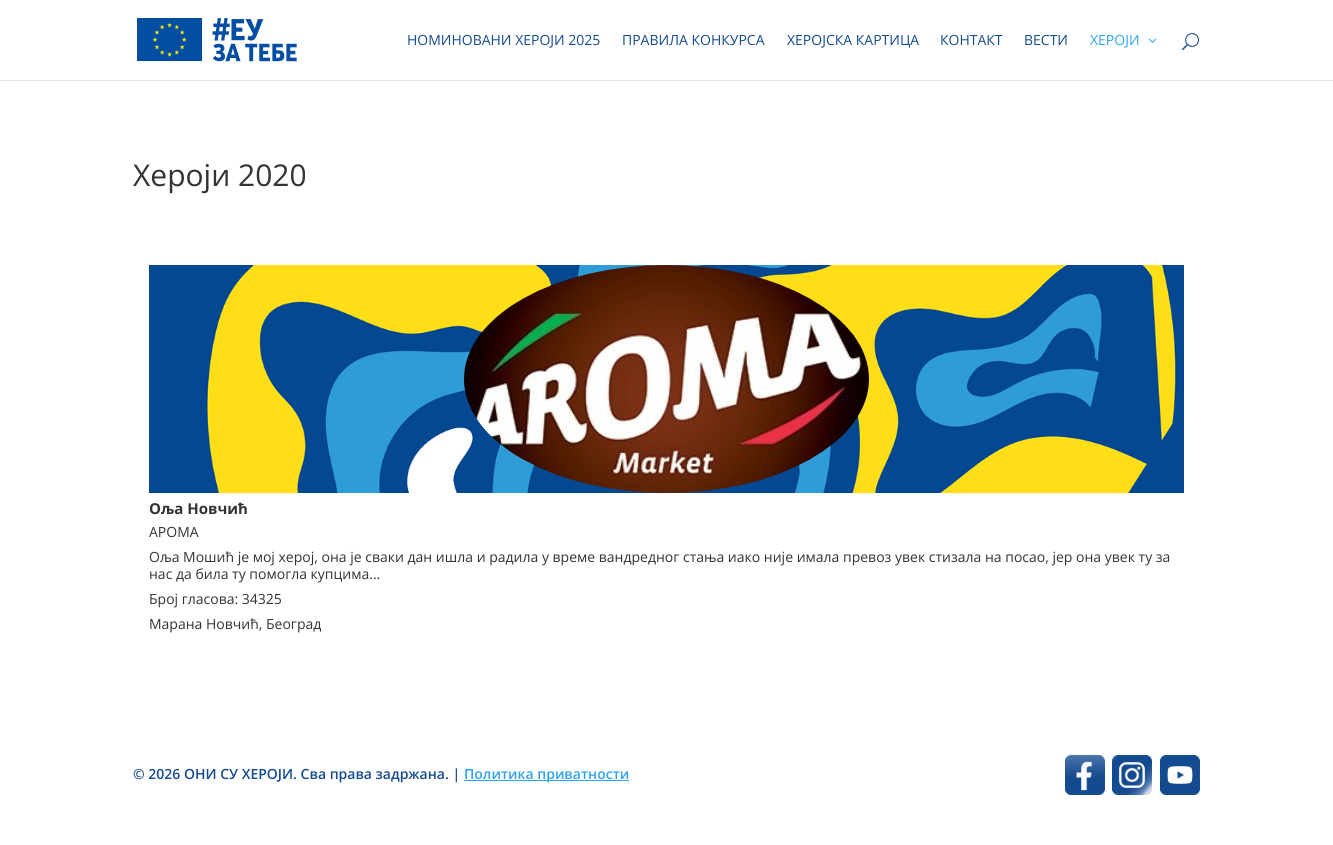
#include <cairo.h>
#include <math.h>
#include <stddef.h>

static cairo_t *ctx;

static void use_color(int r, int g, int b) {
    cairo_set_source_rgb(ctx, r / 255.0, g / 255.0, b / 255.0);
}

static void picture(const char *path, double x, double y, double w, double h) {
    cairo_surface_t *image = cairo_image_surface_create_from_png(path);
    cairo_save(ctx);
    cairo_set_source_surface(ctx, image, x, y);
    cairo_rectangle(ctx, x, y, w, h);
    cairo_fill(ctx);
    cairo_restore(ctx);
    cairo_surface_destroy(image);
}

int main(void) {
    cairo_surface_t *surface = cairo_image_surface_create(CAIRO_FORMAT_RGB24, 1333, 845);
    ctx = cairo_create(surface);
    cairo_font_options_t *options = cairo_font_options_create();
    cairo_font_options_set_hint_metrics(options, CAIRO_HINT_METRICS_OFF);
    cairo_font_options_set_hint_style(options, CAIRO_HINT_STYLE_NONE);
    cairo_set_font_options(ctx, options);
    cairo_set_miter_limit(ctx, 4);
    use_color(255, 255, 255);
    cairo_paint(ctx);
    use_color(230, 230, 230);
    cairo_rectangle(ctx, 0, 80, 1333, 1);
    cairo_fill(ctx);
    picture("img1.png", 137, 18, 160, 44);
    cairo_select_font_face(ctx, "Open Sans", CAIRO_FONT_SLANT_NORMAL, CAIRO_FONT_WEIGHT_NORMAL);
    cairo_set_font_size(ctx, 14);
    use_color(20, 74, 143);
    cairo_move_to(ctx, 407, 45);
    cairo_show_text(ctx, "НОМИНОВАНИ ХЕРОЈИ 2025");
    cairo_move_to(ctx, 622, 45);
    cairo_show_text(ctx, "ПРАВИЛА КОНКУРСА");
    cairo_move_to(ctx, 787, 45);
    cairo_show_text(ctx, "ХЕРОЈСКА КАРТИЦА");
    cairo_move_to(ctx, 940, 45);
    cairo_show_text(ctx, "КОНТАКТ");
    cairo_move_to(ctx, 1024, 45);
    cairo_show_text(ctx, "ВЕСТИ");
    use_color(46, 163, 242);
    cairo_move_to(ctx, 1090, 45);
    cairo_show_text(ctx, "ХЕРОЈИ");
    picture("img2.png", 1148, 38, 9, 5);
    picture("img3.png", 1182, 33, 17, 18);
    cairo_set_font_size(ctx, 30);
    use_color(51, 51, 51);
    cairo_move_to(ctx, 133, 186);
    cairo_show_text(ctx, "Хероји 2020");
    picture("img4.png", 149, 265, 1035, 228);
    picture("img5.png", 464, 265, 405, 228);
    cairo_select_font_face(ctx, "Open Sans", CAIRO_FONT_SLANT_NORMAL, CAIRO_FONT_WEIGHT_BOLD);
    cairo_set_font_size(ctx, 15);
    cairo_move_to(ctx, 149, 514);
    cairo_show_text(ctx, "Оља Новчић");
    cairo_select_font_face(ctx, "Open Sans", CAIRO_FONT_SLANT_NORMAL, CAIRO_FONT_WEIGHT_NORMAL);
    cairo_set_font_size(ctx, 14);
    cairo_move_to(ctx, 149, 537);
    cairo_show_text(ctx, "АРОМА");
    cairo_move_to(ctx, 149, 562);
    cairo_show_text(ctx, "Оља Мошић је мој херој, она је сваки дан ишла и радила у време вандредног стања иако није имала превоз увек стизала на посао, јер она увек ту за");
    cairo_move_to(ctx, 149, 579);
    cairo_show_text(ctx, "нас да била ту помогла купцима...");
    cairo_move_to(ctx, 149, 604);
    cairo_show_text(ctx, "Број гласова: 34325");
    cairo_move_to(ctx, 149, 629);
    cairo_show_text(ctx, "Марана Новчић, Београд");
    cairo_select_font_face(ctx, "Open Sans SemiBold", CAIRO_FONT_SLANT_NORMAL, CAIRO_FONT_WEIGHT_NORMAL);
    use_color(20, 74, 143);
    cairo_move_to(ctx, 133, 779);
    cairo_show_text(ctx, "© 2026 ОНИ СУ ХЕРОЈИ. Сва права задржана. |");
    use_color(46, 163, 242);
    cairo_rectangle(ctx, 464, 780, 165, 1);
    cairo_fill(ctx);
    cairo_move_to(ctx, 464, 779);
    cairo_show_text(ctx, "Политика приватности");
    picture("img6.png", 1065, 755, 40, 40);
    picture("img7.png", 1112, 755, 40, 40);
    picture("img8.png", 1160, 755, 40, 40);
    cairo_surface_write_to_png(surface, "result.png");
    cairo_font_options_destroy(options);
    cairo_destroy(ctx);
    cairo_surface_destroy(surface);
    return 0;
}
